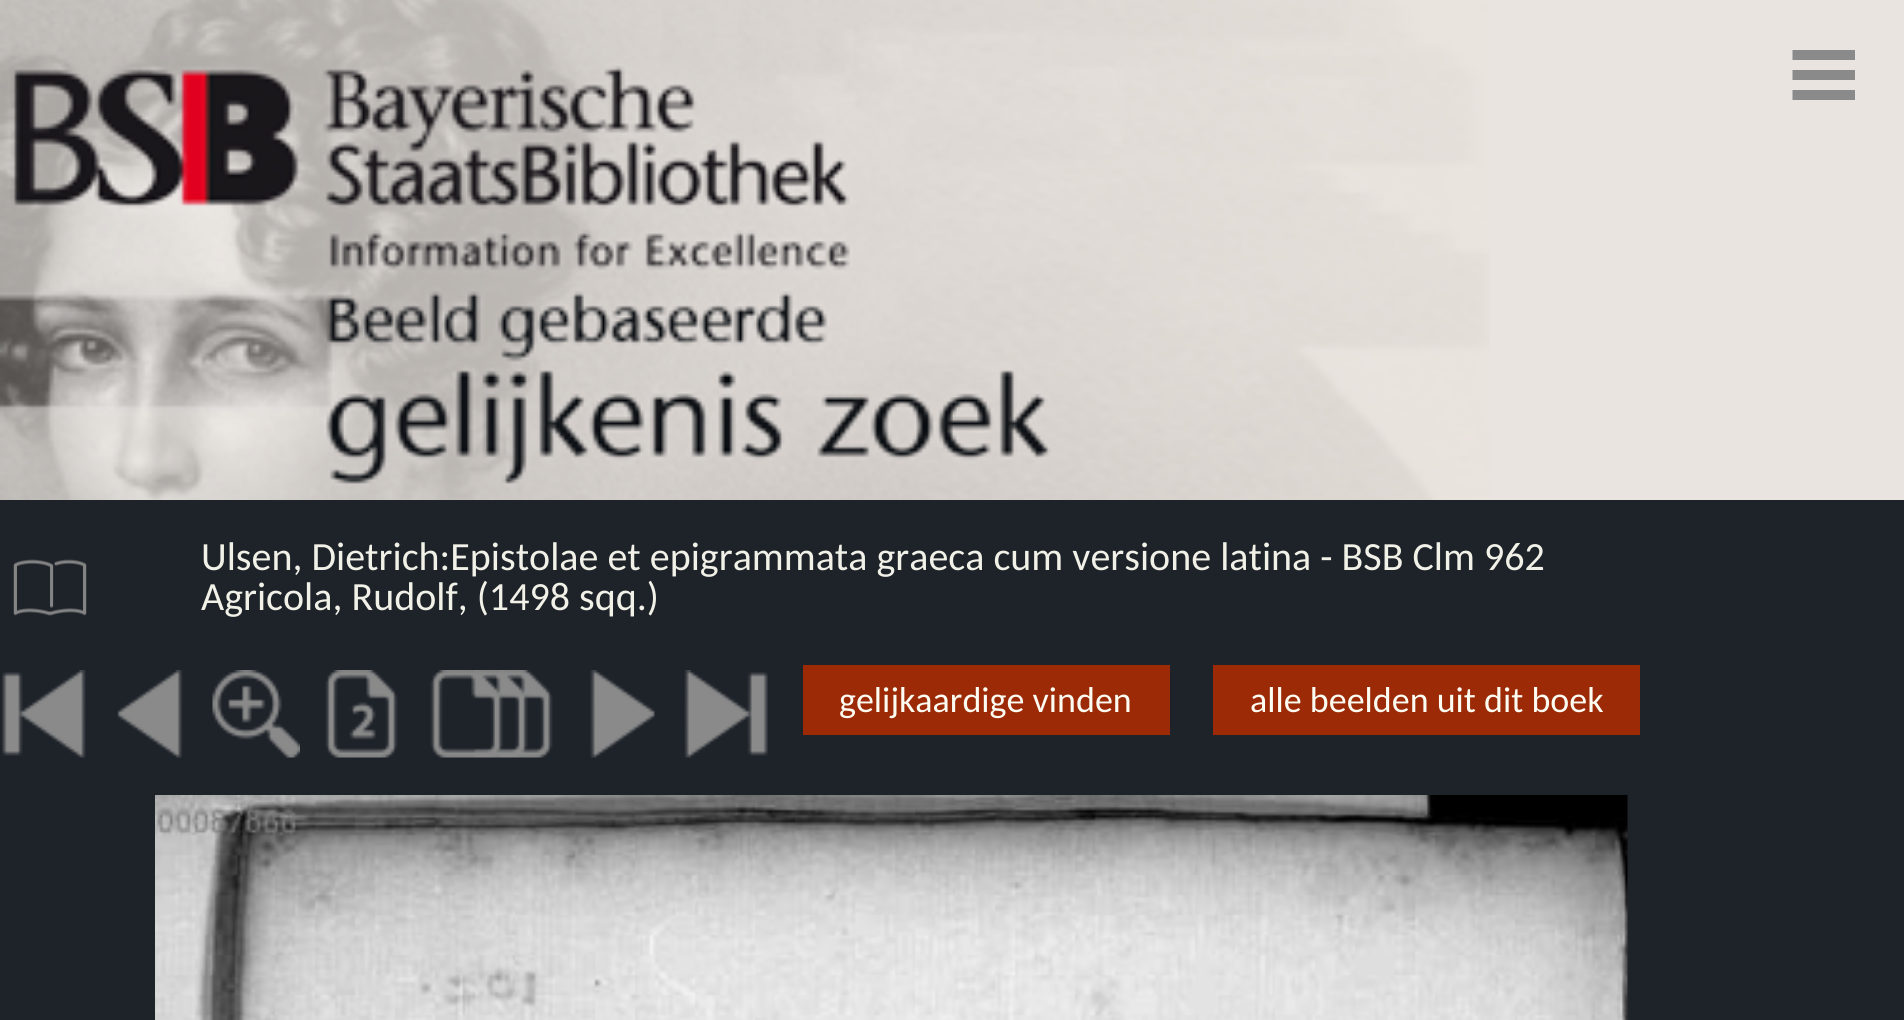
#include <cairo.h>
#include <math.h>
#include <stddef.h>

static cairo_t *ctx;

static void use_color(int r, int g, int b) {
    cairo_set_source_rgb(ctx, r / 255.0, g / 255.0, b / 255.0);
}

static void picture(const char *path, double x, double y, double w, double h) {
    cairo_surface_t *image = cairo_image_surface_create_from_png(path);
    cairo_save(ctx);
    cairo_set_source_surface(ctx, image, x, y);
    cairo_rectangle(ctx, x, y, w, h);
    cairo_fill(ctx);
    cairo_restore(ctx);
    cairo_surface_destroy(image);
}

int main(void) {
    cairo_surface_t *surface = cairo_image_surface_create(CAIRO_FORMAT_RGB24, 1904, 1020);
    ctx = cairo_create(surface);
    cairo_font_options_t *options = cairo_font_options_create();
    cairo_font_options_set_hint_metrics(options, CAIRO_HINT_METRICS_OFF);
    cairo_font_options_set_hint_style(options, CAIRO_HINT_STYLE_NONE);
    cairo_set_font_options(ctx, options);
    cairo_set_miter_limit(ctx, 4);
    use_color(30, 35, 42);
    cairo_paint(ctx);
    use_color(233, 228, 224);
    cairo_rectangle(ctx, 0, 0, 1904, 500);
    cairo_fill(ctx);
    picture("img1.png", 0, 0, 1490, 500);
    picture("img2.png", 1792, 50, 63, 50);
    picture("img3.png", 13, 559, 74, 57);
    cairo_select_font_face(ctx, "Carlito", CAIRO_FONT_SLANT_NORMAL, CAIRO_FONT_WEIGHT_NORMAL);
    cairo_set_font_size(ctx, 40);
    use_color(241, 241, 232);
    cairo_move_to(ctx, 201, 570);
    cairo_show_text(ctx, "Ulsen, Dietrich:Epistolae et epigrammata graeca cum versione latina - BSB Clm 962");
    cairo_move_to(ctx, 201, 610);
    cairo_show_text(ctx, "Agricola, Rudolf, (1498 sqq.)");
    picture("img4.png", 2, 670, 84, 88);
    picture("img5.png", 117, 670, 66, 88);
    picture("img6.png", 212, 670, 88, 88);
    picture("img7.png", 325, 670, 73, 88);
    picture("img8.png", 430, 670, 123, 88);
    picture("img9.png", 590, 670, 65, 88);
    picture("img10.png", 684, 670, 84, 88);
    use_color(156, 42, 7);
    cairo_rectangle(ctx, 803, 665, 367, 70);
    cairo_fill(ctx);
    cairo_set_font_size(ctx, 36);
    use_color(252, 252, 242);
    cairo_move_to(ctx, 839, 712);
    cairo_show_text(ctx, "gelijkaardige vinden");
    use_color(156, 42, 7);
    cairo_rectangle(ctx, 1213, 665, 427, 70);
    cairo_fill(ctx);
    use_color(252, 252, 242);
    cairo_move_to(ctx, 1250, 712);
    cairo_show_text(ctx, "alle beelden uit dit boek");
    picture("img11.png", 155, 795, 1473, 225);
    cairo_surface_write_to_png(surface, "result.png");
    cairo_font_options_destroy(options);
    cairo_destroy(ctx);
    cairo_surface_destroy(surface);
    return 0;
}
